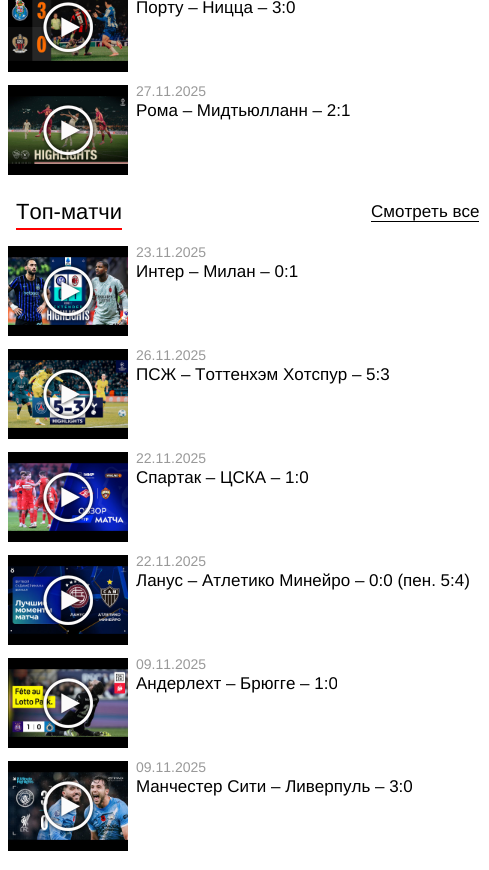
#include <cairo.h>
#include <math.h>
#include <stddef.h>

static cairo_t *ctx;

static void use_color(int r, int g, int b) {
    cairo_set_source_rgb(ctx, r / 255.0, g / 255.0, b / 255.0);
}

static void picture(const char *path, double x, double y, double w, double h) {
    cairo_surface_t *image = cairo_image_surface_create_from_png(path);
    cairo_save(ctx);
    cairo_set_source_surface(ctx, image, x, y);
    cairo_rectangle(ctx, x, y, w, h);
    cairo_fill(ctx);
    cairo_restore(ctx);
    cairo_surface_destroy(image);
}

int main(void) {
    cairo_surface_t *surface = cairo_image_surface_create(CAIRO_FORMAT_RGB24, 489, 870);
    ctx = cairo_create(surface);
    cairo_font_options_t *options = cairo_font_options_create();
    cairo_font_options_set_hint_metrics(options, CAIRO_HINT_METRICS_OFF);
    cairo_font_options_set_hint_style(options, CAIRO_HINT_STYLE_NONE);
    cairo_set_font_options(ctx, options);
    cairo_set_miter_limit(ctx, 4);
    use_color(255, 255, 255);
    cairo_paint(ctx);
    picture("img1.png", 8, 0, 120, 72);
    picture("img2.png", 41, 2, 55, 53);
    cairo_select_font_face(ctx, "Liberation Sans", CAIRO_FONT_SLANT_NORMAL, CAIRO_FONT_WEIGHT_NORMAL);
    cairo_set_font_size(ctx, 17);
    use_color(0, 0, 0);
    cairo_move_to(ctx, 136, 13);
    cairo_show_text(ctx, "Порту – Ницца – 3:0");
    picture("img3.png", 8, 85, 120, 90);
    picture("img4.png", 40, 103, 57, 56);
    cairo_set_font_size(ctx, 14);
    use_color(153, 153, 153);
    cairo_move_to(ctx, 136, 96);
    cairo_show_text(ctx, "27.11.2025");
    cairo_set_font_size(ctx, 17);
    use_color(0, 0, 0);
    cairo_move_to(ctx, 136, 116);
    cairo_show_text(ctx, "Рома – Мидтьюлланн – 2:1");
    use_color(255, 0, 0);
    cairo_rectangle(ctx, 16, 228, 106, 2);
    cairo_fill(ctx);
    cairo_set_font_size(ctx, 22);
    use_color(0, 0, 0);
    cairo_move_to(ctx, 16, 219);
    cairo_show_text(ctx, "Топ-матчи");
    cairo_set_font_size(ctx, 17);
    cairo_move_to(ctx, 371, 217);
    cairo_show_text(ctx, "Смотреть все");
    cairo_rectangle(ctx, 371, 221, 108, 1);
    cairo_fill(ctx);
    picture("img5.png", 8, 246, 120, 90);
    picture("img6.png", 40, 263, 57, 57);
    cairo_set_font_size(ctx, 14);
    use_color(153, 153, 153);
    cairo_move_to(ctx, 136, 257);
    cairo_show_text(ctx, "23.11.2025");
    cairo_set_font_size(ctx, 17);
    use_color(0, 0, 0);
    cairo_move_to(ctx, 136, 277);
    cairo_show_text(ctx, "Интер – Милан – 0:1");
    picture("img7.png", 8, 349, 120, 90);
    picture("img8.png", 40, 366, 57, 57);
    cairo_set_font_size(ctx, 14);
    use_color(153, 153, 153);
    cairo_move_to(ctx, 136, 360);
    cairo_show_text(ctx, "26.11.2025");
    cairo_set_font_size(ctx, 17);
    use_color(0, 0, 0);
    cairo_move_to(ctx, 136, 380);
    cairo_show_text(ctx, "ПСЖ – Тоттенхэм Хотспур – 5:3");
    picture("img9.png", 8, 452, 120, 90);
    picture("img10.png", 40, 469, 57, 56);
    cairo_set_font_size(ctx, 14);
    use_color(153, 153, 153);
    cairo_move_to(ctx, 136, 463);
    cairo_show_text(ctx, "22.11.2025");
    cairo_set_font_size(ctx, 17);
    use_color(0, 0, 0);
    cairo_move_to(ctx, 136, 483);
    cairo_show_text(ctx, "Спартак – ЦСКА – 1:0");
    picture("img11.png", 8, 555, 120, 90);
    picture("img12.png", 40, 572, 57, 56);
    cairo_set_font_size(ctx, 14);
    use_color(153, 153, 153);
    cairo_move_to(ctx, 136, 566);
    cairo_show_text(ctx, "22.11.2025");
    cairo_set_font_size(ctx, 17);
    use_color(0, 0, 0);
    cairo_move_to(ctx, 136, 586);
    cairo_show_text(ctx, "Ланус – Атлетико Минейро – 0:0 (пен. 5:4)");
    picture("img13.png", 8, 658, 120, 90);
    picture("img14.png", 40, 675, 56, 57);
    cairo_set_font_size(ctx, 14);
    use_color(153, 153, 153);
    cairo_move_to(ctx, 136, 669);
    cairo_show_text(ctx, "09.11.2025");
    cairo_set_font_size(ctx, 17);
    use_color(0, 0, 0);
    cairo_move_to(ctx, 136, 689);
    cairo_show_text(ctx, "Андерлехт – Брюгге – 1:0");
    picture("img15.png", 8, 761, 120, 90);
    picture("img16.png", 40, 778, 57, 57);
    cairo_set_font_size(ctx, 14);
    use_color(153, 153, 153);
    cairo_move_to(ctx, 136, 772);
    cairo_show_text(ctx, "09.11.2025");
    cairo_set_font_size(ctx, 17);
    use_color(0, 0, 0);
    cairo_move_to(ctx, 136, 792);
    cairo_show_text(ctx, "Манчестер Сити – Ливерпуль – 3:0");
    cairo_surface_write_to_png(surface, "result.png");
    cairo_font_options_destroy(options);
    cairo_destroy(ctx);
    cairo_surface_destroy(surface);
    return 0;
}
